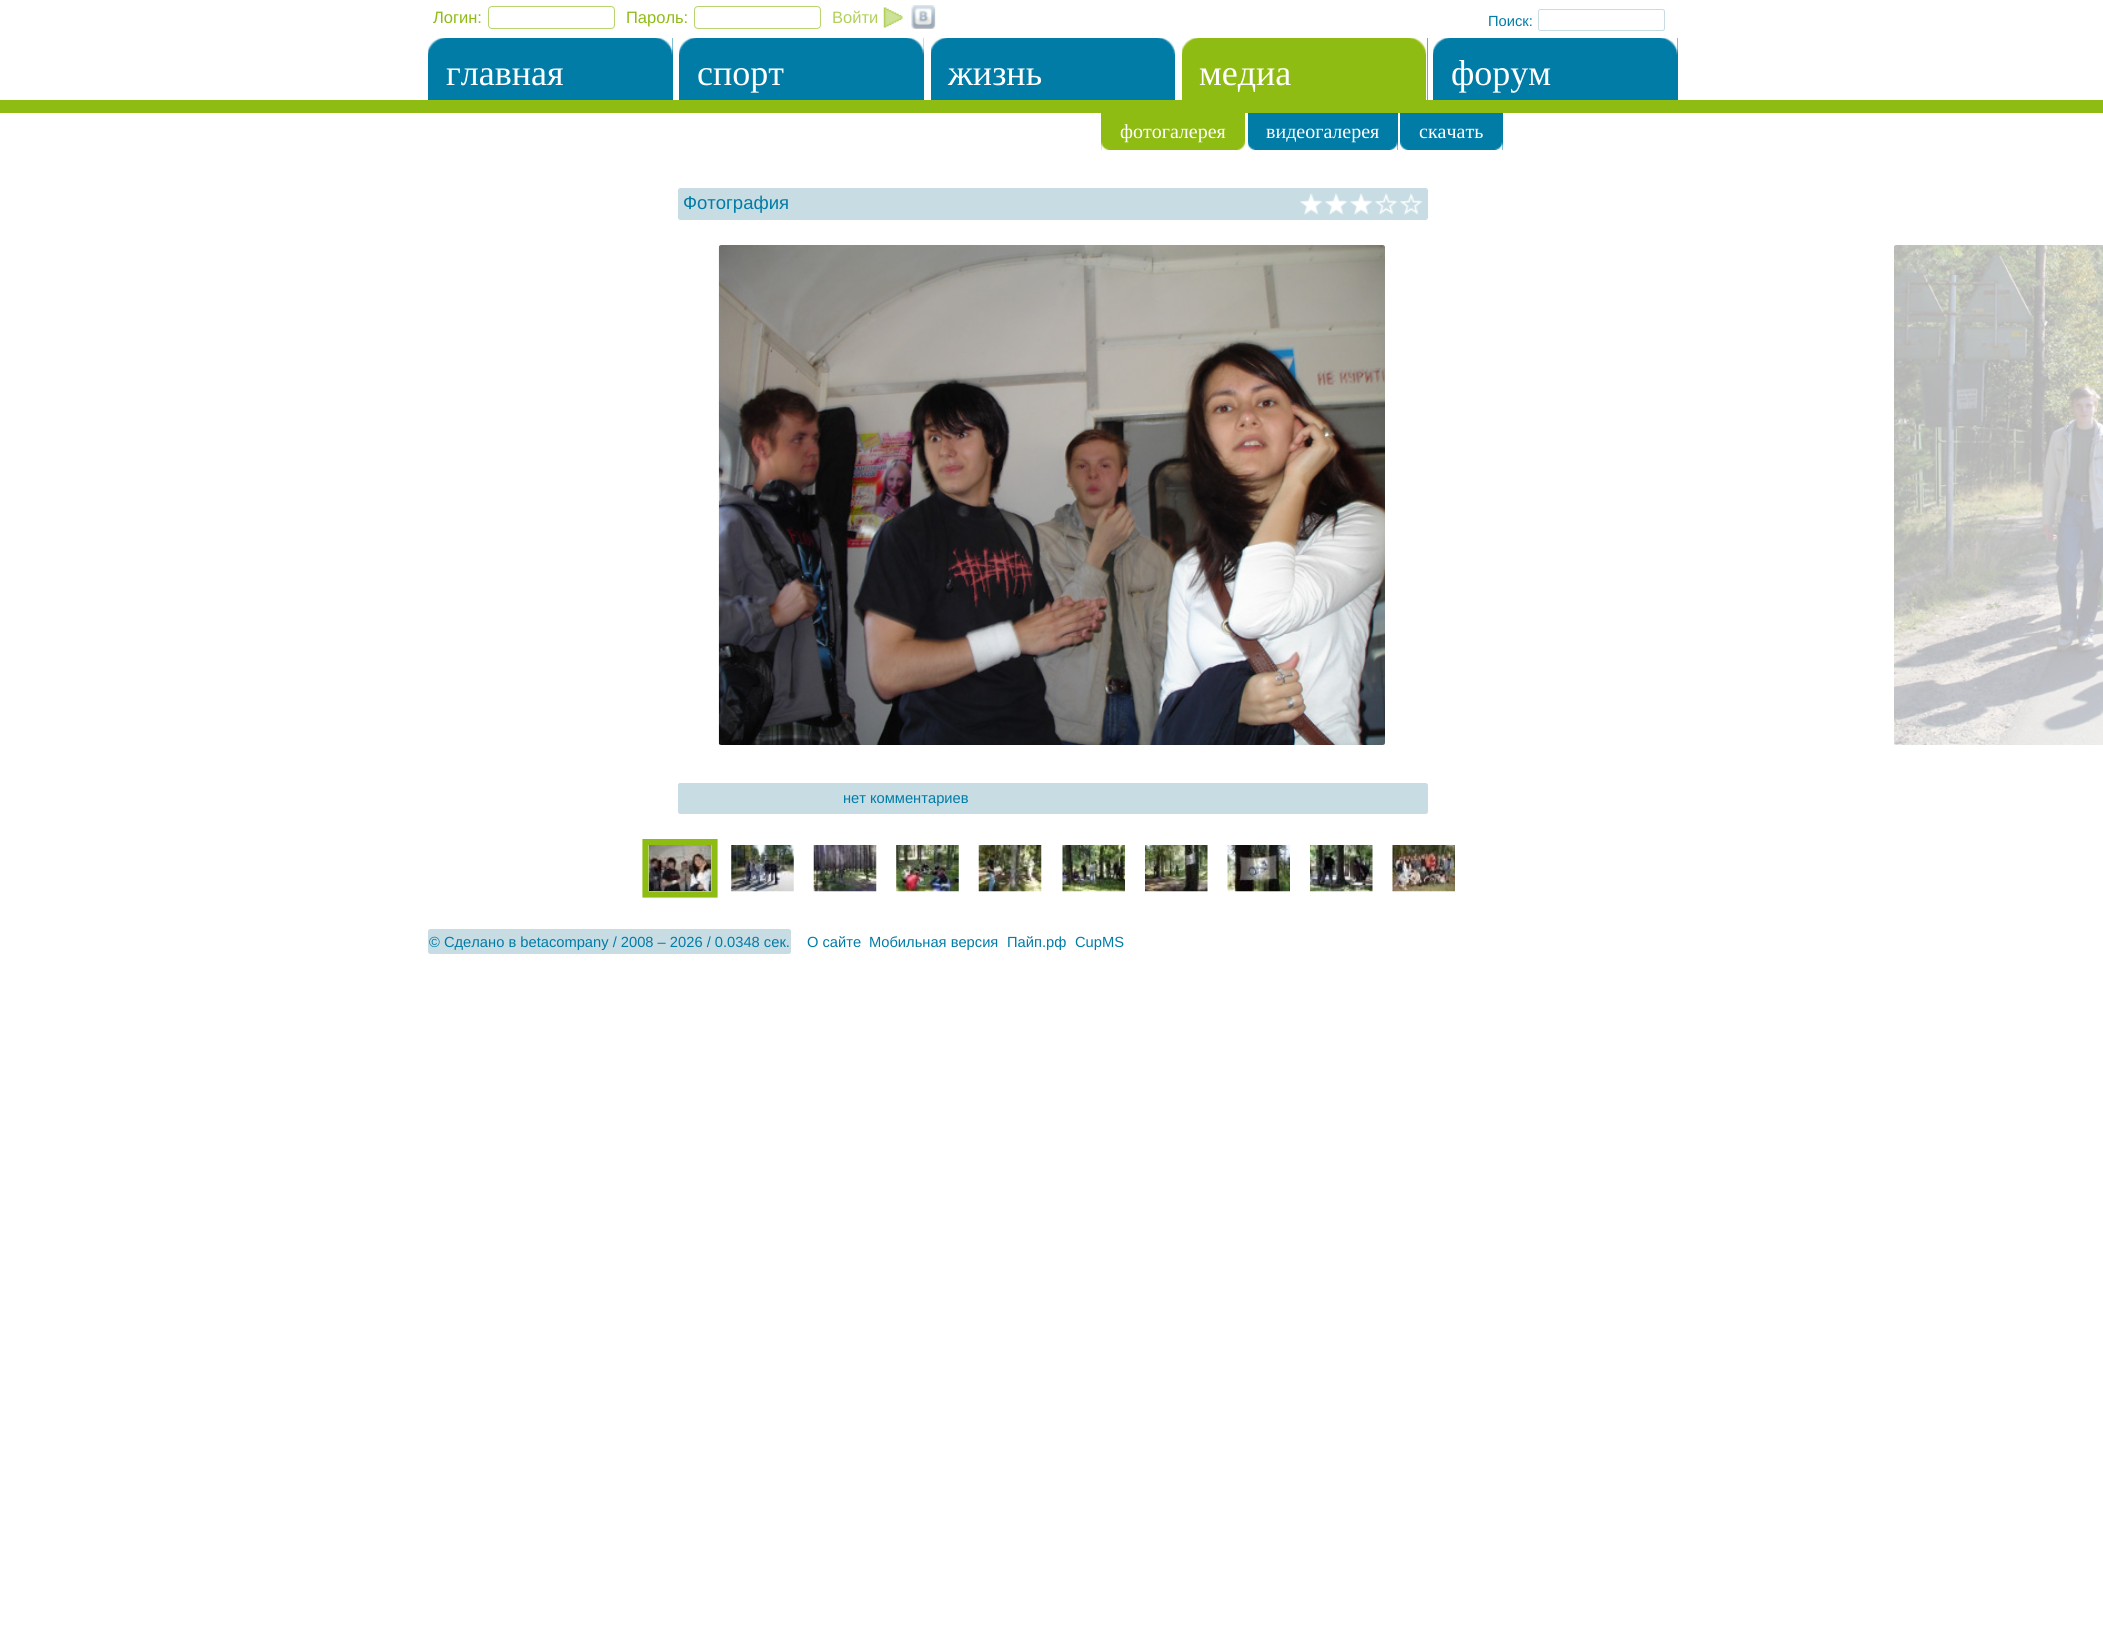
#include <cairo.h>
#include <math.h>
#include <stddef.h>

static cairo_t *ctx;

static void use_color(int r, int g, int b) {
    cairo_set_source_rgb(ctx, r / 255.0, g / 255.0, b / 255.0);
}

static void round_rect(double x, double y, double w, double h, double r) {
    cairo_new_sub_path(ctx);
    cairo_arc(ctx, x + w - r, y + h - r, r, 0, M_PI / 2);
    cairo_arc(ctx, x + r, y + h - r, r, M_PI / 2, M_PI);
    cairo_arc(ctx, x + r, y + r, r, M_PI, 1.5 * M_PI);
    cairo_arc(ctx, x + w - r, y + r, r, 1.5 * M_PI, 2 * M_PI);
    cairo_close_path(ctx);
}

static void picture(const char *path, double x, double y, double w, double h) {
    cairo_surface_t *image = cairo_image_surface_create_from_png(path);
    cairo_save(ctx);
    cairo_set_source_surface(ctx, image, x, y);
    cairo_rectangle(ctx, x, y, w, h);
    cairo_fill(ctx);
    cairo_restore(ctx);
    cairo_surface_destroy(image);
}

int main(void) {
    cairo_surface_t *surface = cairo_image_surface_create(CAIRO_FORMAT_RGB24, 2103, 1634);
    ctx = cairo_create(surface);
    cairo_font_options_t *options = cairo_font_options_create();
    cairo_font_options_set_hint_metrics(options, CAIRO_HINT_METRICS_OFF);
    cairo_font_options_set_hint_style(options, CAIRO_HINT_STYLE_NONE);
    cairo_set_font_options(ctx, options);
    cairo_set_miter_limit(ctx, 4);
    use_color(255, 255, 255);
    cairo_paint(ctx);
    cairo_select_font_face(ctx, "Liberation Sans", CAIRO_FONT_SLANT_NORMAL, CAIRO_FONT_WEIGHT_NORMAL);
    cairo_set_font_size(ctx, 16.5);
    use_color(143, 188, 19);
    cairo_move_to(ctx, 433, 23);
    cairo_show_text(ctx, "Логин:");
    round_rect(488.5, 6.5, 126, 22, 3.5);
    use_color(184, 212, 108);
    cairo_set_line_width(ctx, 1);
    cairo_stroke(ctx);
    use_color(143, 188, 19);
    cairo_move_to(ctx, 626, 23);
    cairo_show_text(ctx, "Пароль:");
    round_rect(694.5, 6.5, 126, 22, 3.5);
    use_color(184, 212, 108);
    cairo_stroke(ctx);
    use_color(177, 208, 90);
    cairo_move_to(ctx, 832, 23);
    cairo_show_text(ctx, "Войти");
    picture("img1.png", 883, 7, 20, 21);
    picture("img2.png", 911, 5, 25, 24);
    cairo_set_font_size(ctx, 14.7);
    use_color(0, 124, 167);
    cairo_move_to(ctx, 1488, 26);
    cairo_show_text(ctx, "Поиск:");
    round_rect(1538.5, 9.5, 126, 21, 2);
    use_color(199, 220, 227);
    cairo_stroke(ctx);
    use_color(0, 124, 167);
    cairo_rectangle(ctx, 428, 38, 245, 62);
    cairo_fill(ctx);
    picture("img3.png", 428, 38, 18, 17);
    picture("img4.png", 655, 38, 18, 17);
    cairo_select_font_face(ctx, "Liberation Serif", CAIRO_FONT_SLANT_NORMAL, CAIRO_FONT_WEIGHT_NORMAL);
    cairo_set_font_size(ctx, 36);
    use_color(255, 255, 255);
    cairo_move_to(ctx, 446, 85);
    cairo_show_text(ctx, "главная");
    use_color(0, 124, 167);
    cairo_rectangle(ctx, 679, 38, 245, 62);
    cairo_fill(ctx);
    picture("img5.png", 679, 38, 17, 17);
    picture("img6.png", 906, 38, 18, 17);
    use_color(255, 255, 255);
    cairo_move_to(ctx, 697, 85);
    cairo_show_text(ctx, "спорт");
    use_color(0, 124, 167);
    cairo_rectangle(ctx, 931, 38, 244, 62);
    cairo_fill(ctx);
    picture("img7.png", 931, 38, 17, 16);
    picture("img8.png", 1157, 38, 18, 17);
    use_color(255, 255, 255);
    cairo_move_to(ctx, 948, 85);
    cairo_show_text(ctx, "жизнь");
    use_color(143, 188, 19);
    cairo_rectangle(ctx, 1182, 38, 246, 62);
    cairo_fill(ctx);
    picture("img9.png", 1182, 38, 17, 17);
    use_color(255, 255, 255);
    cairo_rectangle(ctx, 1426, 38, 1, 62);
    cairo_fill(ctx);
    picture("img10.png", 1409, 38, 17, 17);
    cairo_move_to(ctx, 1199, 85);
    cairo_show_text(ctx, "медиа");
    use_color(0, 124, 167);
    cairo_rectangle(ctx, 1433, 38, 245, 62);
    cairo_fill(ctx);
    picture("img11.png", 1433, 38, 17, 17);
    picture("img12.png", 1660, 38, 18, 17);
    use_color(255, 255, 255);
    cairo_move_to(ctx, 1451, 85);
    cairo_show_text(ctx, "форум");
    use_color(143, 188, 19);
    cairo_rectangle(ctx, 0, 100, 2103, 13);
    cairo_fill(ctx);
    cairo_rectangle(ctx, 1101, 113, 144, 37);
    cairo_fill(ctx);
    picture("img13.png", 1101, 142, 8, 8);
    picture("img14.png", 1237, 141, 8, 9);
    cairo_set_font_size(ctx, 20);
    use_color(255, 255, 255);
    cairo_move_to(ctx, 1120, 138);
    cairo_show_text(ctx, "фотогалерея");
    use_color(0, 124, 167);
    cairo_rectangle(ctx, 1248, 113, 150, 37);
    cairo_fill(ctx);
    picture("img15.png", 1248, 142, 7, 8);
    picture("img16.png", 1390, 142, 8, 8);
    use_color(255, 255, 255);
    cairo_move_to(ctx, 1266, 138);
    cairo_show_text(ctx, "видеогалерея");
    use_color(0, 124, 167);
    cairo_rectangle(ctx, 1400, 113, 103, 37);
    cairo_fill(ctx);
    picture("img17.png", 1400, 141, 8, 9);
    picture("img18.png", 1495, 142, 8, 8);
    use_color(255, 255, 255);
    cairo_move_to(ctx, 1419, 138);
    cairo_show_text(ctx, "скачать");
    use_color(199, 220, 227);
    round_rect(678, 188, 750, 32, 2.5);
    cairo_fill(ctx);
    cairo_select_font_face(ctx, "Liberation Sans", CAIRO_FONT_SLANT_NORMAL, CAIRO_FONT_WEIGHT_NORMAL);
    cairo_set_font_size(ctx, 18.5);
    use_color(0, 124, 167);
    cairo_move_to(ctx, 683, 209);
    cairo_show_text(ctx, "Фотография");
    picture("img19.png", 1300, 193, 23, 22);
    picture("img19.png", 1325, 193, 23, 22);
    picture("img19.png", 1350, 193, 23, 22);
    picture("img20.png", 1375, 193, 23, 22);
    picture("img20.png", 1400, 193, 23, 22);
    picture("img21.png", 718, 245, 667, 500);
    picture("img22.png", 1894, 245, 209, 500);
    round_rect(678.5, 783.5, 156, 27, 2);
    use_color(199, 220, 227);
    cairo_stroke(ctx);
    round_rect(678, 783, 750, 31, 2.5);
    cairo_fill(ctx);
    cairo_set_font_size(ctx, 14.7);
    use_color(0, 124, 167);
    cairo_move_to(ctx, 843, 803);
    cairo_show_text(ctx, "нет комментариев");
    cairo_save(ctx);
    cairo_rectangle(ctx, 0, 839, 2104, 65);
    cairo_clip(ctx);
    cairo_new_path(ctx);
    cairo_move_to(ctx, 645.5, 842);
    cairo_line_to(ctx, 714.5, 842);
    cairo_line_to(ctx, 714.5, 894.5);
    cairo_line_to(ctx, 645.5, 894.5);
    cairo_close_path(ctx);
    use_color(143, 188, 19);
    cairo_set_line_width(ctx, 6.2);
    cairo_stroke(ctx);
    cairo_restore(ctx);
    picture("img23.png", 648, 845, 64, 47);
    picture("img24.png", 731, 845, 63, 47);
    picture("img25.png", 813, 845, 64, 47);
    picture("img26.png", 896, 845, 63, 47);
    picture("img27.png", 978, 845, 64, 47);
    picture("img28.png", 1062, 845, 63, 47);
    picture("img29.png", 1145, 845, 63, 47);
    picture("img30.png", 1227, 845, 63, 47);
    picture("img31.png", 1310, 845, 63, 47);
    picture("img32.png", 1392, 845, 63, 47);
    use_color(199, 220, 227);
    round_rect(428, 929, 363, 25, 2.5);
    cairo_fill(ctx);
    use_color(0, 124, 167);
    cairo_move_to(ctx, 429, 947);
    cairo_show_text(ctx, "© Сделано в betacompany / 2008 – 2026 / 0.0348 сек.");
    cairo_move_to(ctx, 807, 947);
    cairo_show_text(ctx, "О сайте");
    cairo_move_to(ctx, 869, 947);
    cairo_show_text(ctx, "Мобильная версия");
    cairo_move_to(ctx, 1007, 947);
    cairo_show_text(ctx, "Пайп.рф");
    cairo_move_to(ctx, 1075, 947);
    cairo_show_text(ctx, "CupMS");
    cairo_surface_write_to_png(surface, "result.png");
    cairo_font_options_destroy(options);
    cairo_destroy(ctx);
    cairo_surface_destroy(surface);
    return 0;
}
